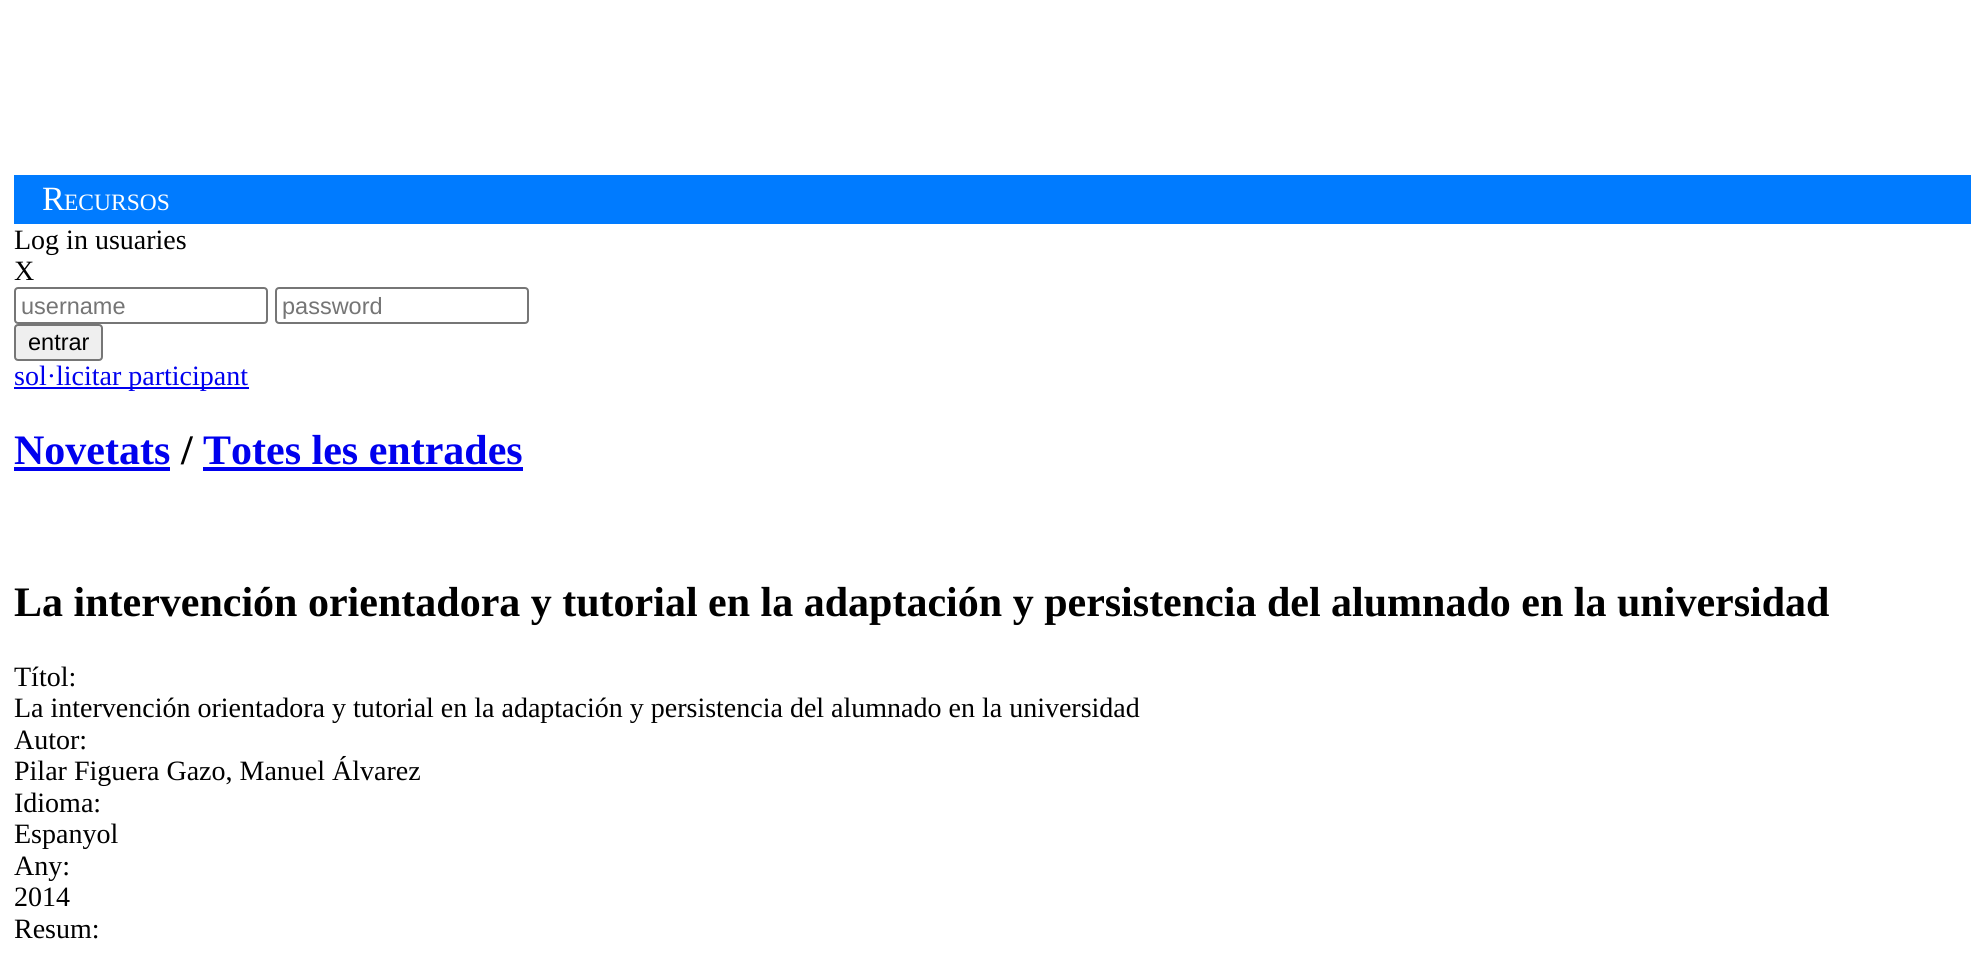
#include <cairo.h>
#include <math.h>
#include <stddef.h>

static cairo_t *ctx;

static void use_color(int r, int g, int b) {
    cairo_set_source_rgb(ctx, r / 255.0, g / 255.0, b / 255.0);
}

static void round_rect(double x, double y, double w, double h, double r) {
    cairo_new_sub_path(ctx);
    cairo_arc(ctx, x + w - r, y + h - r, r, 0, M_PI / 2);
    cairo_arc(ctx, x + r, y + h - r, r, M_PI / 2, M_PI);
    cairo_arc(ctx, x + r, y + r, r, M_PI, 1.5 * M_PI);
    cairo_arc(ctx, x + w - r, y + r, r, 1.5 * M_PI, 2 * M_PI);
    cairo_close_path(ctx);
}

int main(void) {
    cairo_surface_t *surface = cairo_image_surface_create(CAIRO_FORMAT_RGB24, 1983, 959);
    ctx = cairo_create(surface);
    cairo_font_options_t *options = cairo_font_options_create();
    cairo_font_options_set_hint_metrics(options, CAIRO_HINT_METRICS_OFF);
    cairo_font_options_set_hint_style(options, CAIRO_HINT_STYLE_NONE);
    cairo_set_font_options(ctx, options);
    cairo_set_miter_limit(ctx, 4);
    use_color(255, 255, 255);
    cairo_paint(ctx);
    use_color(0, 123, 255);
    cairo_rectangle(ctx, 14, 175, 1957, 49);
    cairo_fill(ctx);
    cairo_select_font_face(ctx, "Liberation Serif", CAIRO_FONT_SLANT_NORMAL, CAIRO_FONT_WEIGHT_NORMAL);
    cairo_set_font_size(ctx, 34);
    use_color(255, 255, 255);
    cairo_move_to(ctx, 42, 210);
    cairo_show_text(ctx, "R");
    cairo_set_font_size(ctx, 23.5);
    cairo_move_to(ctx, 64, 210);
    cairo_show_text(ctx, "ECURSOS");
    cairo_set_font_size(ctx, 28);
    use_color(0, 0, 0);
    cairo_move_to(ctx, 14, 249);
    cairo_show_text(ctx, "Log in usuaries");
    cairo_move_to(ctx, 14, 280);
    cairo_show_text(ctx, "X");
    round_rect(15, 288, 252, 35, 3);
    use_color(118, 118, 118);
    cairo_stroke(ctx);
    cairo_select_font_face(ctx, "Liberation Sans", CAIRO_FONT_SLANT_NORMAL, CAIRO_FONT_WEIGHT_NORMAL);
    cairo_set_font_size(ctx, 23.5);
    use_color(117, 117, 117);
    cairo_move_to(ctx, 21, 314);
    cairo_show_text(ctx, "username");
    round_rect(276, 288, 252, 35, 3);
    use_color(118, 118, 118);
    cairo_stroke(ctx);
    use_color(117, 117, 117);
    cairo_move_to(ctx, 282, 314);
    cairo_show_text(ctx, "password");
    use_color(239, 239, 239);
    round_rect(15, 325, 87, 35, 3);
    cairo_fill_preserve(ctx);
    use_color(118, 118, 118);
    cairo_stroke(ctx);
    use_color(0, 0, 0);
    cairo_move_to(ctx, 28, 350);
    cairo_show_text(ctx, "entrar");
    use_color(0, 0, 238);
    cairo_rectangle(ctx, 14, 387, 235, 2);
    cairo_fill(ctx);
    cairo_select_font_face(ctx, "Liberation Serif", CAIRO_FONT_SLANT_NORMAL, CAIRO_FONT_WEIGHT_NORMAL);
    cairo_set_font_size(ctx, 28);
    cairo_move_to(ctx, 14, 385);
    cairo_show_text(ctx, "sol·licitar participant");
    cairo_select_font_face(ctx, "Liberation Serif", CAIRO_FONT_SLANT_NORMAL, CAIRO_FONT_WEIGHT_BOLD);
    cairo_set_font_size(ctx, 42);
    cairo_move_to(ctx, 14, 464);
    cairo_show_text(ctx, "Novetats");
    cairo_rectangle(ctx, 14, 467, 156, 4);
    cairo_fill(ctx);
    use_color(0, 0, 0);
    cairo_move_to(ctx, 181, 464);
    cairo_show_text(ctx, "/");
    use_color(0, 0, 238);
    cairo_move_to(ctx, 203, 464);
    cairo_show_text(ctx, "Totes les entrades");
    cairo_rectangle(ctx, 203, 467, 320, 4);
    cairo_fill(ctx);
    use_color(0, 0, 0);
    cairo_move_to(ctx, 14, 616);
    cairo_show_text(ctx, "La intervención orientadora y tutorial en la adaptación y persistencia del alumnado en la universidad");
    cairo_select_font_face(ctx, "Liberation Serif", CAIRO_FONT_SLANT_NORMAL, CAIRO_FONT_WEIGHT_NORMAL);
    cairo_set_font_size(ctx, 28);
    cairo_move_to(ctx, 14, 686);
    cairo_show_text(ctx, "Títol:");
    cairo_move_to(ctx, 14, 717);
    cairo_show_text(ctx, "La intervención orientadora y tutorial en la adaptación y persistencia del alumnado en la universidad");
    cairo_move_to(ctx, 14, 749);
    cairo_show_text(ctx, "Autor:");
    cairo_move_to(ctx, 14, 780);
    cairo_show_text(ctx, "Pilar Figuera Gazo, Manuel Álvarez");
    cairo_move_to(ctx, 14, 812);
    cairo_show_text(ctx, "Idioma:");
    cairo_move_to(ctx, 14, 843);
    cairo_show_text(ctx, "Espanyol");
    cairo_move_to(ctx, 14, 875);
    cairo_show_text(ctx, "Any:");
    cairo_move_to(ctx, 14, 906);
    cairo_show_text(ctx, "2014");
    cairo_move_to(ctx, 14, 938);
    cairo_show_text(ctx, "Resum:");
    cairo_surface_write_to_png(surface, "result.png");
    cairo_font_options_destroy(options);
    cairo_destroy(ctx);
    cairo_surface_destroy(surface);
    return 0;
}
